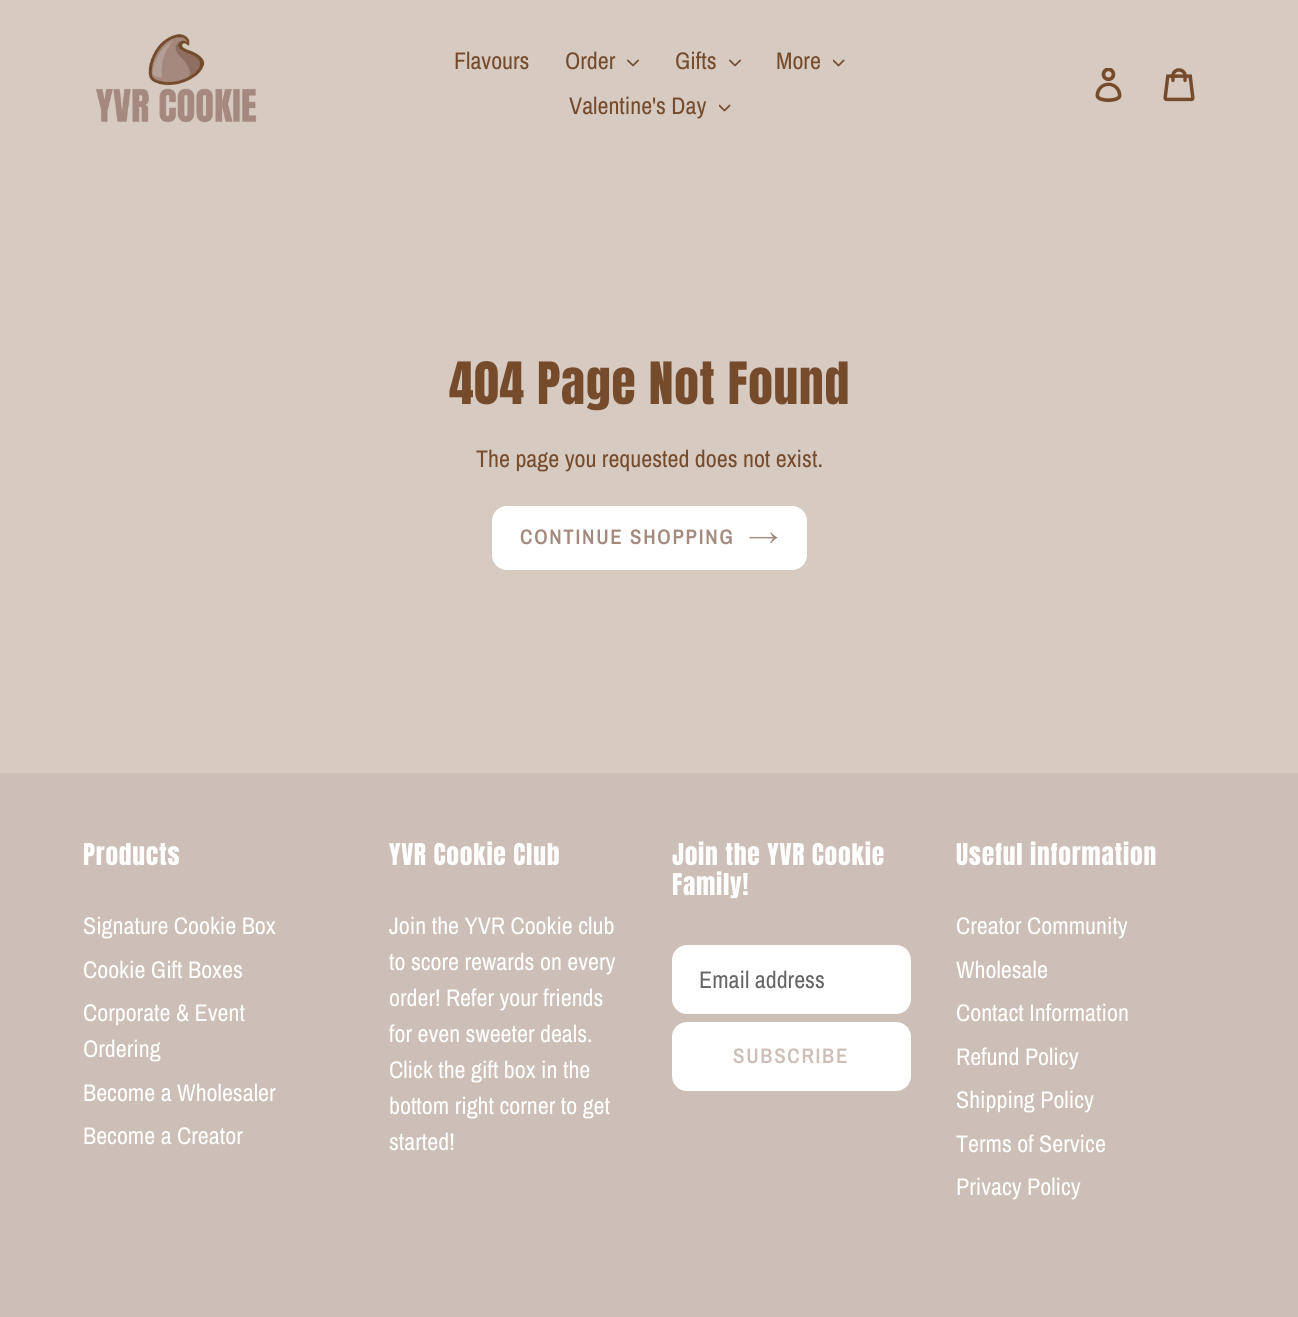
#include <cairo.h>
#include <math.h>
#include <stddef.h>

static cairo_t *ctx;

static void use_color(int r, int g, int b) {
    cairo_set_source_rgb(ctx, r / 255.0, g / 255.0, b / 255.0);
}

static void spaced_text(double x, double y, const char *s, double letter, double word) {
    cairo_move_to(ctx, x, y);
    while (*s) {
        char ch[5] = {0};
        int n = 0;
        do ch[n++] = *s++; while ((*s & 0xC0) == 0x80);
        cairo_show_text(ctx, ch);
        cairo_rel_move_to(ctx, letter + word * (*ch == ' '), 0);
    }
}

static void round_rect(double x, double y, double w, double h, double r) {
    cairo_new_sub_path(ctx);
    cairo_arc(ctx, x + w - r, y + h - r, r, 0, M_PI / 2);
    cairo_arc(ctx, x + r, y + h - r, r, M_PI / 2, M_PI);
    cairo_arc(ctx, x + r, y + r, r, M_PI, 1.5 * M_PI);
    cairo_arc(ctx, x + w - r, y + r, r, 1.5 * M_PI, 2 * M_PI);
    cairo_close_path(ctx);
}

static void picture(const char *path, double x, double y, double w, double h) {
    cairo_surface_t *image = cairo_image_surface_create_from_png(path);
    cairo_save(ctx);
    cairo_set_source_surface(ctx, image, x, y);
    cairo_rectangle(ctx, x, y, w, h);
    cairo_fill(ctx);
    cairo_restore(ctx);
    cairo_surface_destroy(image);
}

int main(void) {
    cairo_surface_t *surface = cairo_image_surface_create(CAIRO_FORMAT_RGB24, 1298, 1317);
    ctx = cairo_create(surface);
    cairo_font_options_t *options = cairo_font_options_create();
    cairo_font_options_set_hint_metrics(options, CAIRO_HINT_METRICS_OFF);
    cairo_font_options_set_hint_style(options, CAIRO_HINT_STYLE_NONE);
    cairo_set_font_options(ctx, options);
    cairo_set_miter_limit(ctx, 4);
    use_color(214, 202, 193);
    cairo_paint(ctx);
    picture("img1.png", 95, 34, 162, 89);
    cairo_select_font_face(ctx, "Archivo Narrow", CAIRO_FONT_SLANT_NORMAL, CAIRO_FONT_WEIGHT_NORMAL);
    cairo_set_font_size(ctx, 24);
    use_color(117, 75, 44);
    cairo_move_to(ctx, 454, 69);
    cairo_show_text(ctx, "Flavours");
    cairo_move_to(ctx, 565, 69);
    cairo_show_text(ctx, "Order");
    picture("img2.png", 627, 59, 12, 8);
    cairo_move_to(ctx, 675, 69);
    cairo_show_text(ctx, "Gifts");
    picture("img2.png", 729, 59, 12, 8);
    cairo_move_to(ctx, 776, 69);
    cairo_show_text(ctx, "More");
    picture("img3.png", 833, 59, 12, 8);
    cairo_move_to(ctx, 569, 114);
    cairo_show_text(ctx, "Valentine's Day");
    picture("img3.png", 719, 104, 12, 8);
    picture("img4.png", 1095, 68, 27, 34);
    picture("img5.png", 1163, 68, 32, 34);
    cairo_select_font_face(ctx, "Anton", CAIRO_FONT_SLANT_NORMAL, CAIRO_FONT_WEIGHT_NORMAL);
    cairo_set_font_size(ctx, 49.5);
    spaced_text(449, 404, "404 Page Not Found", 0.75, 0);
    cairo_select_font_face(ctx, "Archivo Narrow", CAIRO_FONT_SLANT_NORMAL, CAIRO_FONT_WEIGHT_NORMAL);
    cairo_set_font_size(ctx, 24);
    cairo_move_to(ctx, 476, 467);
    cairo_show_text(ctx, "The page you requested does not exist.");
    use_color(255, 255, 255);
    round_rect(492, 506, 315, 64, 15);
    cairo_fill(ctx);
    cairo_select_font_face(ctx, "Archivo Narrow SemiBold", CAIRO_FONT_SLANT_NORMAL, CAIRO_FONT_WEIGHT_NORMAL);
    cairo_set_font_size(ctx, 21);
    use_color(164, 137, 126);
    spaced_text(520, 544, "CONTINUE SHOPPING", 1.7, 0);
    picture("img6.png", 749, 532, 29, 11);
    use_color(205, 191, 184);
    cairo_rectangle(ctx, 0, 773, 1298, 544);
    cairo_fill(ctx);
    cairo_select_font_face(ctx, "Anton", CAIRO_FONT_SLANT_NORMAL, CAIRO_FONT_WEIGHT_NORMAL);
    cairo_set_font_size(ctx, 25.5);
    use_color(255, 255, 255);
    spaced_text(83, 865, "Products", 0.75, 0);
    cairo_select_font_face(ctx, "Archivo Narrow", CAIRO_FONT_SLANT_NORMAL, CAIRO_FONT_WEIGHT_NORMAL);
    cairo_set_font_size(ctx, 24);
    cairo_move_to(ctx, 83, 934);
    cairo_show_text(ctx, "Signature Cookie Box");
    cairo_move_to(ctx, 83, 978);
    cairo_show_text(ctx, "Cookie Gift Boxes");
    cairo_move_to(ctx, 83, 1021);
    cairo_show_text(ctx, "Corporate & Event");
    cairo_move_to(ctx, 83, 1057);
    cairo_show_text(ctx, "Ordering");
    cairo_move_to(ctx, 83, 1101);
    cairo_show_text(ctx, "Become a Wholesaler");
    cairo_move_to(ctx, 83, 1144);
    cairo_show_text(ctx, "Become a Creator");
    cairo_select_font_face(ctx, "Anton", CAIRO_FONT_SLANT_NORMAL, CAIRO_FONT_WEIGHT_NORMAL);
    cairo_set_font_size(ctx, 25.5);
    spaced_text(389, 865, "YVR Cookie Club", 0.75, 0);
    cairo_select_font_face(ctx, "Archivo Narrow", CAIRO_FONT_SLANT_NORMAL, CAIRO_FONT_WEIGHT_NORMAL);
    cairo_set_font_size(ctx, 24);
    cairo_move_to(ctx, 389, 934);
    cairo_show_text(ctx, "Join the YVR Cookie club");
    cairo_move_to(ctx, 389, 970);
    cairo_show_text(ctx, "to score rewards on every");
    cairo_move_to(ctx, 389, 1006);
    cairo_show_text(ctx, "order! Refer your friends");
    cairo_move_to(ctx, 389, 1042);
    cairo_show_text(ctx, "for even sweeter deals.");
    cairo_move_to(ctx, 389, 1078);
    cairo_show_text(ctx, "Click the gift box in the");
    cairo_move_to(ctx, 389, 1114);
    cairo_show_text(ctx, "bottom right corner to get");
    cairo_move_to(ctx, 389, 1150);
    cairo_show_text(ctx, "started!");
    cairo_select_font_face(ctx, "Anton", CAIRO_FONT_SLANT_NORMAL, CAIRO_FONT_WEIGHT_NORMAL);
    cairo_set_font_size(ctx, 25.5);
    spaced_text(672, 865, "Join the YVR Cookie", 0.75, 0);
    spaced_text(672, 895, "Family!", 0.75, 0);
    round_rect(672, 945, 239, 69, 15);
    cairo_fill(ctx);
    cairo_select_font_face(ctx, "Archivo Narrow", CAIRO_FONT_SLANT_NORMAL, CAIRO_FONT_WEIGHT_NORMAL);
    cairo_set_font_size(ctx, 24);
    use_color(102, 102, 102);
    cairo_move_to(ctx, 699, 988);
    cairo_show_text(ctx, "Email address");
    use_color(255, 255, 255);
    round_rect(673.5, 1023.5, 236, 66, 13.5);
    cairo_fill_preserve(ctx);
    cairo_set_line_width(ctx, 3);
    cairo_stroke(ctx);
    cairo_select_font_face(ctx, "Archivo Narrow SemiBold", CAIRO_FONT_SLANT_NORMAL, CAIRO_FONT_WEIGHT_NORMAL);
    cairo_set_font_size(ctx, 21);
    use_color(205, 191, 184);
    spaced_text(733, 1063, "SUBSCRIBE", 1.7, 0);
    cairo_select_font_face(ctx, "Anton", CAIRO_FONT_SLANT_NORMAL, CAIRO_FONT_WEIGHT_NORMAL);
    cairo_set_font_size(ctx, 25.5);
    use_color(255, 255, 255);
    spaced_text(956, 865, "Useful information", 0.75, 0);
    cairo_select_font_face(ctx, "Archivo Narrow", CAIRO_FONT_SLANT_NORMAL, CAIRO_FONT_WEIGHT_NORMAL);
    cairo_set_font_size(ctx, 24);
    cairo_move_to(ctx, 956, 934);
    cairo_show_text(ctx, "Creator Community");
    cairo_move_to(ctx, 956, 978);
    cairo_show_text(ctx, "Wholesale");
    cairo_move_to(ctx, 956, 1021);
    cairo_show_text(ctx, "Contact Information");
    cairo_move_to(ctx, 956, 1065);
    cairo_show_text(ctx, "Refund Policy");
    cairo_move_to(ctx, 956, 1108);
    cairo_show_text(ctx, "Shipping Policy");
    cairo_move_to(ctx, 956, 1152);
    cairo_show_text(ctx, "Terms of Service");
    cairo_move_to(ctx, 956, 1195);
    cairo_show_text(ctx, "Privacy Policy");
    cairo_surface_write_to_png(surface, "result.png");
    cairo_font_options_destroy(options);
    cairo_destroy(ctx);
    cairo_surface_destroy(surface);
    return 0;
}
